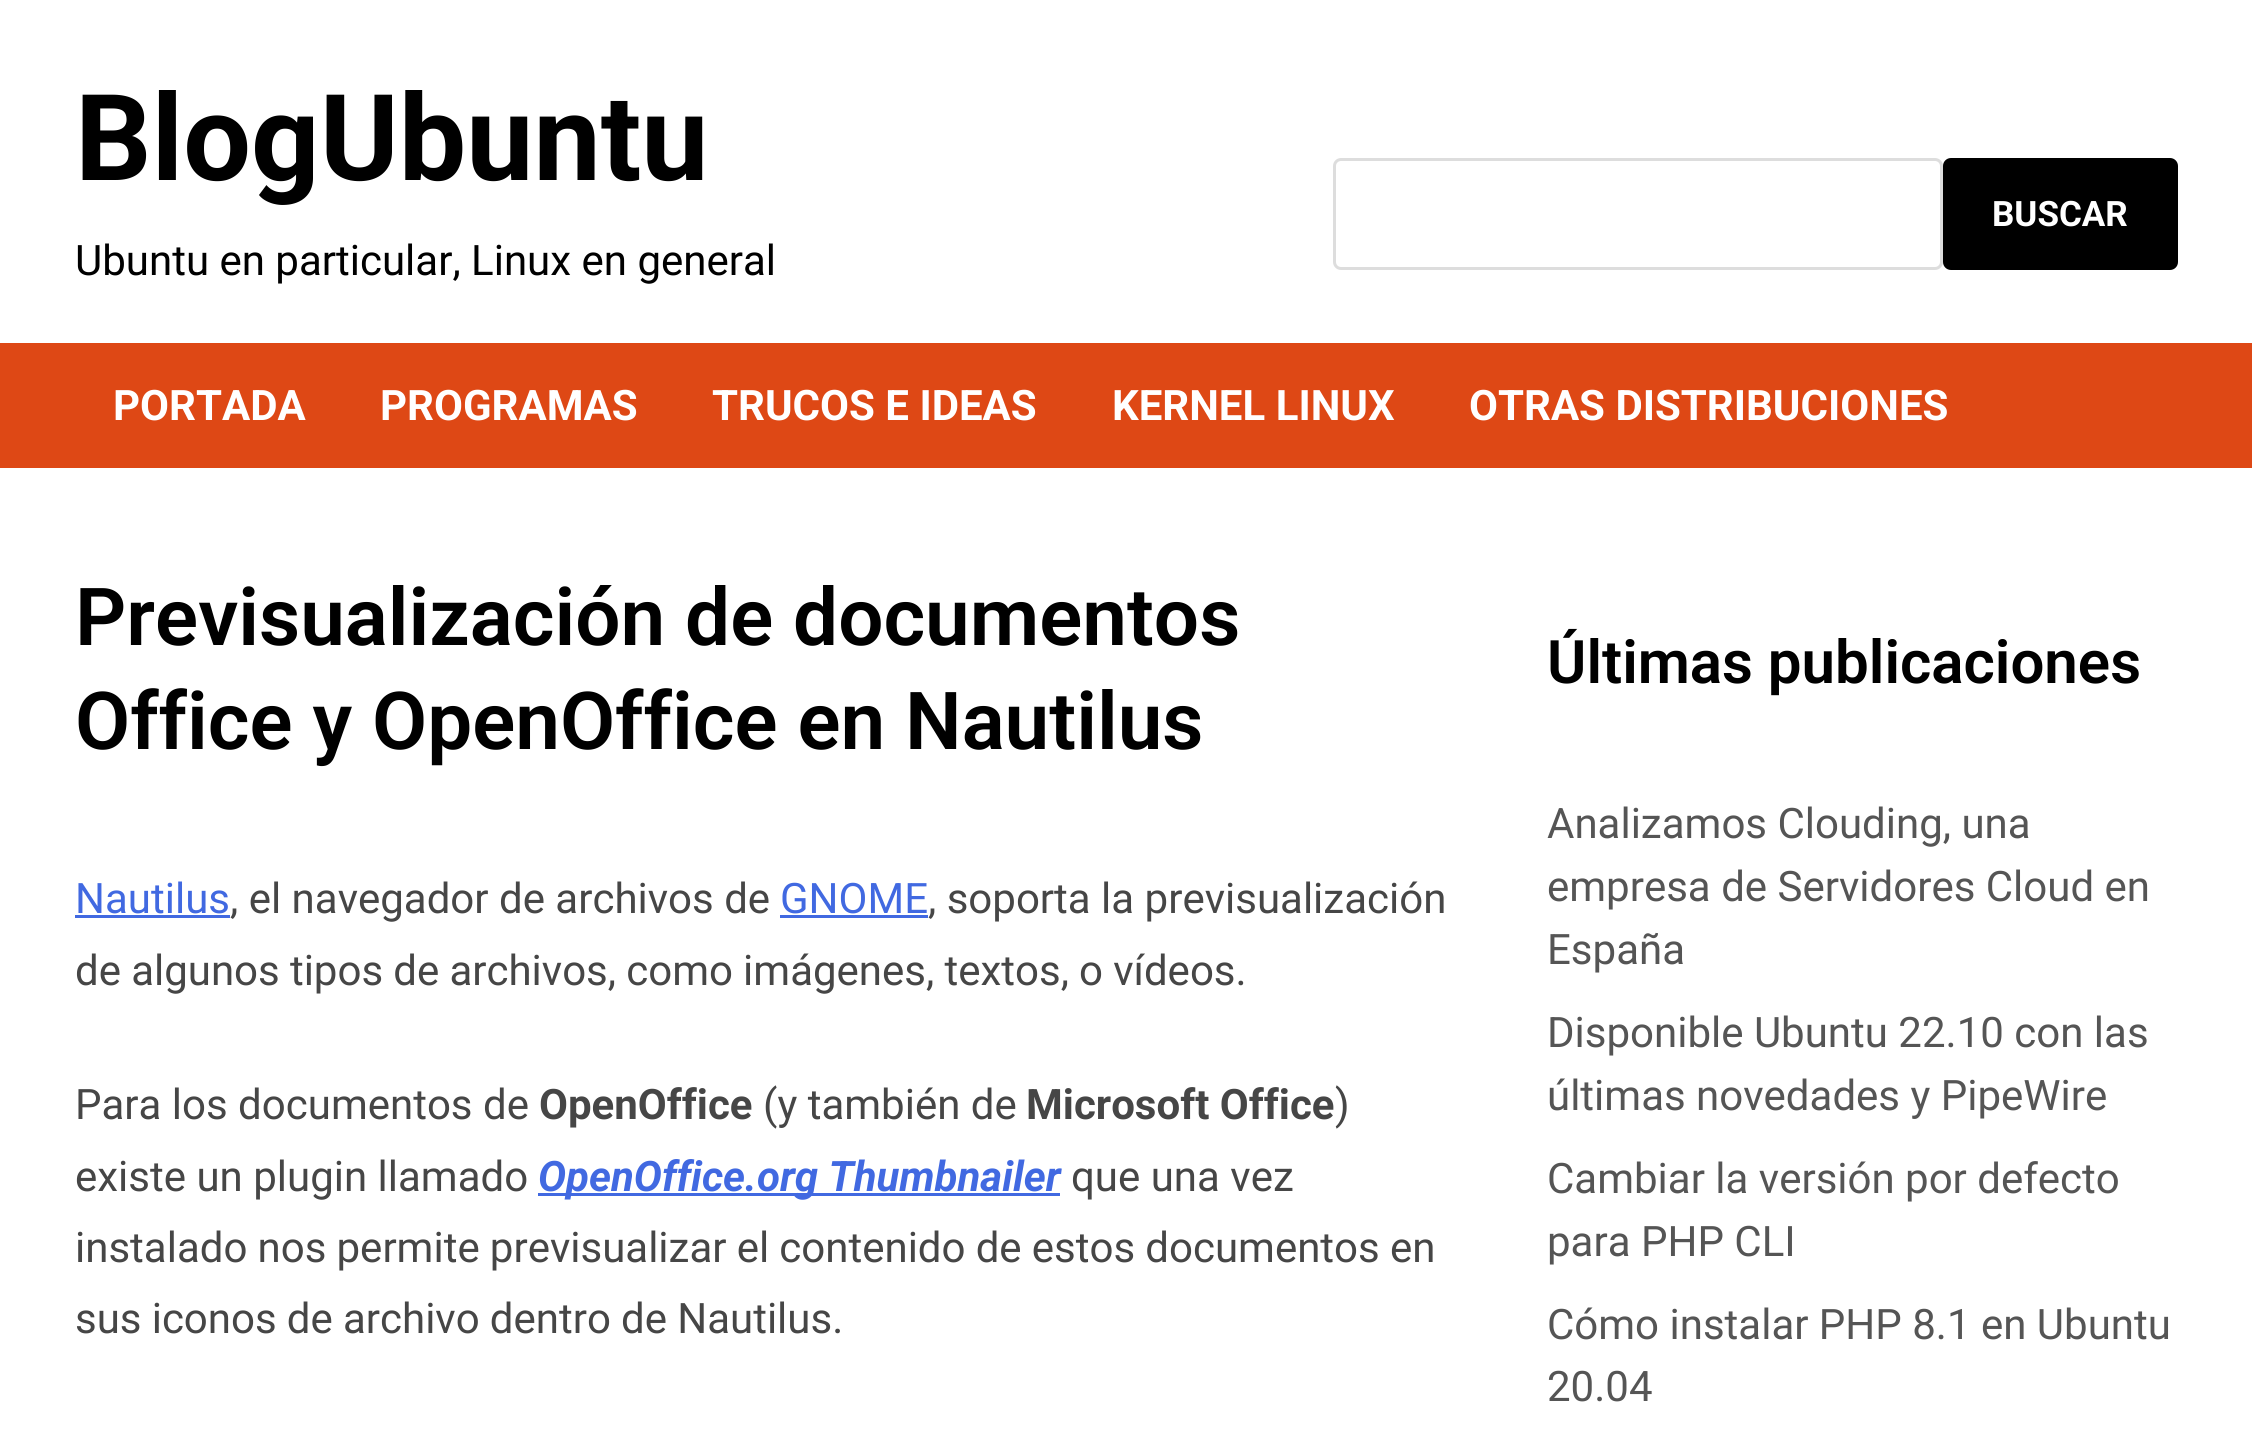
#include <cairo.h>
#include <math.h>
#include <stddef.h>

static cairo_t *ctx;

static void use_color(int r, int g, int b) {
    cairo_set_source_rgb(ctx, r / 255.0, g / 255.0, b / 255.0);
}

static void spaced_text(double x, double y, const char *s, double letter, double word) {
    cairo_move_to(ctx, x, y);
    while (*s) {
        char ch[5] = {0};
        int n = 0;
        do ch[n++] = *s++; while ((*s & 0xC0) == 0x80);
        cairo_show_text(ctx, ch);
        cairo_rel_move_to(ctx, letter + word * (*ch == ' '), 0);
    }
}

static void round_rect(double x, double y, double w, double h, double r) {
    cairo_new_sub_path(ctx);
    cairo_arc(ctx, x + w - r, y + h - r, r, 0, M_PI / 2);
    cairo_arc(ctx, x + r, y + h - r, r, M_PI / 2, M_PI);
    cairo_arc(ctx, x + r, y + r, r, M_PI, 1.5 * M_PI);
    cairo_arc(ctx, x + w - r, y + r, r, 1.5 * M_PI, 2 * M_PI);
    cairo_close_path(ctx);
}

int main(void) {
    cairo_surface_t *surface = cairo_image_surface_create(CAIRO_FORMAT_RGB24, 2252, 1430);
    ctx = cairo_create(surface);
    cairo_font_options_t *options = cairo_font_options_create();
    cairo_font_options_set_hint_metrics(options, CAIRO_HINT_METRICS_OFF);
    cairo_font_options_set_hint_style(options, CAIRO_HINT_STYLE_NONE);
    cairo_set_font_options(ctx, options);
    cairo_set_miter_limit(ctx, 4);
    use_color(255, 255, 255);
    cairo_paint(ctx);
    cairo_select_font_face(ctx, "Roboto", CAIRO_FONT_SLANT_NORMAL, CAIRO_FONT_WEIGHT_BOLD);
    cairo_set_font_size(ctx, 120);
    use_color(0, 0, 0);
    cairo_move_to(ctx, 75, 180);
    cairo_show_text(ctx, "BlogUbuntu");
    cairo_select_font_face(ctx, "Roboto", CAIRO_FONT_SLANT_NORMAL, CAIRO_FONT_WEIGHT_NORMAL);
    cairo_set_font_size(ctx, 42);
    cairo_move_to(ctx, 75, 275);
    cairo_show_text(ctx, "Ubuntu en particular, Linux en general");
    round_rect(1334.5, 159.5, 607, 109, 6.5);
    use_color(221, 221, 221);
    cairo_set_line_width(ctx, 3);
    cairo_stroke(ctx);
    use_color(0, 0, 0);
    round_rect(1943, 158, 235, 112, 8);
    cairo_fill(ctx);
    cairo_select_font_face(ctx, "Roboto", CAIRO_FONT_SLANT_NORMAL, CAIRO_FONT_WEIGHT_BOLD);
    cairo_set_font_size(ctx, 35);
    use_color(255, 255, 255);
    cairo_move_to(ctx, 1992, 226);
    cairo_show_text(ctx, "BUSCAR");
    use_color(222, 72, 21);
    cairo_rectangle(ctx, 0, 343, 2252, 125);
    cairo_fill(ctx);
    cairo_set_font_size(ctx, 42);
    use_color(255, 255, 255);
    cairo_move_to(ctx, 113, 420);
    cairo_show_text(ctx, "PORTADA");
    cairo_move_to(ctx, 380, 420);
    cairo_show_text(ctx, "PROGRAMAS");
    cairo_move_to(ctx, 712, 420);
    cairo_show_text(ctx, "TRUCOS E IDEAS");
    cairo_move_to(ctx, 1112, 420);
    cairo_show_text(ctx, "KERNEL LINUX");
    cairo_move_to(ctx, 1469, 420);
    cairo_show_text(ctx, "OTRAS DISTRIBUCIONES");
    cairo_select_font_face(ctx, "Roboto SemiBold", CAIRO_FONT_SLANT_NORMAL, CAIRO_FONT_WEIGHT_NORMAL);
    cairo_set_font_size(ctx, 80);
    use_color(0, 0, 0);
    cairo_move_to(ctx, 75, 645);
    cairo_show_text(ctx, "Previsualización de documentos");
    cairo_move_to(ctx, 75, 749);
    cairo_show_text(ctx, "Office y OpenOffice en Nautilus");
    cairo_select_font_face(ctx, "Roboto", CAIRO_FONT_SLANT_NORMAL, CAIRO_FONT_WEIGHT_NORMAL);
    cairo_set_font_size(ctx, 42);
    use_color(65, 105, 225);
    cairo_move_to(ctx, 75, 913);
    cairo_show_text(ctx, "Nautilus");
    cairo_rectangle(ctx, 75, 915, 155, 3);
    cairo_fill(ctx);
    use_color(70, 70, 70);
    cairo_move_to(ctx, 230, 913);
    cairo_show_text(ctx, ", el navegador de archivos de");
    use_color(65, 105, 225);
    cairo_move_to(ctx, 780, 913);
    cairo_show_text(ctx, "GNOME");
    cairo_rectangle(ctx, 780, 915, 148, 3);
    cairo_fill(ctx);
    use_color(70, 70, 70);
    cairo_move_to(ctx, 928, 913);
    cairo_show_text(ctx, ", soporta la previsualización");
    spaced_text(75, 985, "de algunos tipos de archivos, como imágenes, textos, o vídeos.", 0, -0.25);
    cairo_move_to(ctx, 75, 1119);
    cairo_show_text(ctx, "Para los documentos de");
    cairo_select_font_face(ctx, "Roboto", CAIRO_FONT_SLANT_NORMAL, CAIRO_FONT_WEIGHT_BOLD);
    cairo_move_to(ctx, 539, 1119);
    cairo_show_text(ctx, "OpenOffice");
    cairo_select_font_face(ctx, "Roboto", CAIRO_FONT_SLANT_NORMAL, CAIRO_FONT_WEIGHT_NORMAL);
    cairo_move_to(ctx, 763, 1119);
    cairo_show_text(ctx, "(y también de");
    cairo_select_font_face(ctx, "Roboto", CAIRO_FONT_SLANT_NORMAL, CAIRO_FONT_WEIGHT_BOLD);
    cairo_move_to(ctx, 1026, 1119);
    cairo_show_text(ctx, "Microsoft Office");
    cairo_select_font_face(ctx, "Roboto", CAIRO_FONT_SLANT_NORMAL, CAIRO_FONT_WEIGHT_NORMAL);
    cairo_move_to(ctx, 1335, 1119);
    cairo_show_text(ctx, ")");
    cairo_move_to(ctx, 75, 1191);
    cairo_show_text(ctx, "existe un plugin llamado");
    use_color(65, 105, 225);
    cairo_rectangle(ctx, 538, 1193, 522, 3);
    cairo_fill(ctx);
    cairo_select_font_face(ctx, "Roboto", CAIRO_FONT_SLANT_ITALIC, CAIRO_FONT_WEIGHT_BOLD);
    cairo_move_to(ctx, 538, 1191);
    cairo_show_text(ctx, "OpenOffice.org Thumbnailer");
    cairo_select_font_face(ctx, "Roboto", CAIRO_FONT_SLANT_NORMAL, CAIRO_FONT_WEIGHT_NORMAL);
    use_color(70, 70, 70);
    cairo_move_to(ctx, 1071, 1191);
    cairo_show_text(ctx, "que una vez");
    spaced_text(75, 1262, "instalado nos permite previsualizar el contenido de estos documentos en", 0, -0.25);
    spaced_text(75, 1333, "sus iconos de archivo dentro de Nautilus.", 0, -0.25);
    cairo_select_font_face(ctx, "Roboto SemiBold", CAIRO_FONT_SLANT_NORMAL, CAIRO_FONT_WEIGHT_NORMAL);
    cairo_set_font_size(ctx, 60);
    use_color(0, 0, 0);
    cairo_move_to(ctx, 1547, 683);
    cairo_show_text(ctx, "Últimas publicaciones");
    cairo_select_font_face(ctx, "Roboto", CAIRO_FONT_SLANT_NORMAL, CAIRO_FONT_WEIGHT_NORMAL);
    cairo_set_font_size(ctx, 42);
    use_color(85, 85, 85);
    cairo_move_to(ctx, 1547, 838);
    cairo_show_text(ctx, "Analizamos Clouding, una");
    cairo_move_to(ctx, 1547, 901);
    cairo_show_text(ctx, "empresa de Servidores Cloud en");
    cairo_move_to(ctx, 1547, 964);
    cairo_show_text(ctx, "España");
    cairo_move_to(ctx, 1547, 1047);
    cairo_show_text(ctx, "Disponible Ubuntu 22.10 con las");
    cairo_move_to(ctx, 1547, 1110);
    cairo_show_text(ctx, "últimas novedades y PipeWire");
    cairo_move_to(ctx, 1547, 1193);
    cairo_show_text(ctx, "Cambiar la versión por defecto");
    cairo_move_to(ctx, 1547, 1256);
    cairo_show_text(ctx, "para PHP CLI");
    cairo_move_to(ctx, 1547, 1339);
    cairo_show_text(ctx, "Cómo instalar PHP 8.1 en Ubuntu");
    cairo_move_to(ctx, 1547, 1401);
    cairo_show_text(ctx, "20.04");
    cairo_surface_write_to_png(surface, "result.png");
    cairo_font_options_destroy(options);
    cairo_destroy(ctx);
    cairo_surface_destroy(surface);
    return 0;
}
